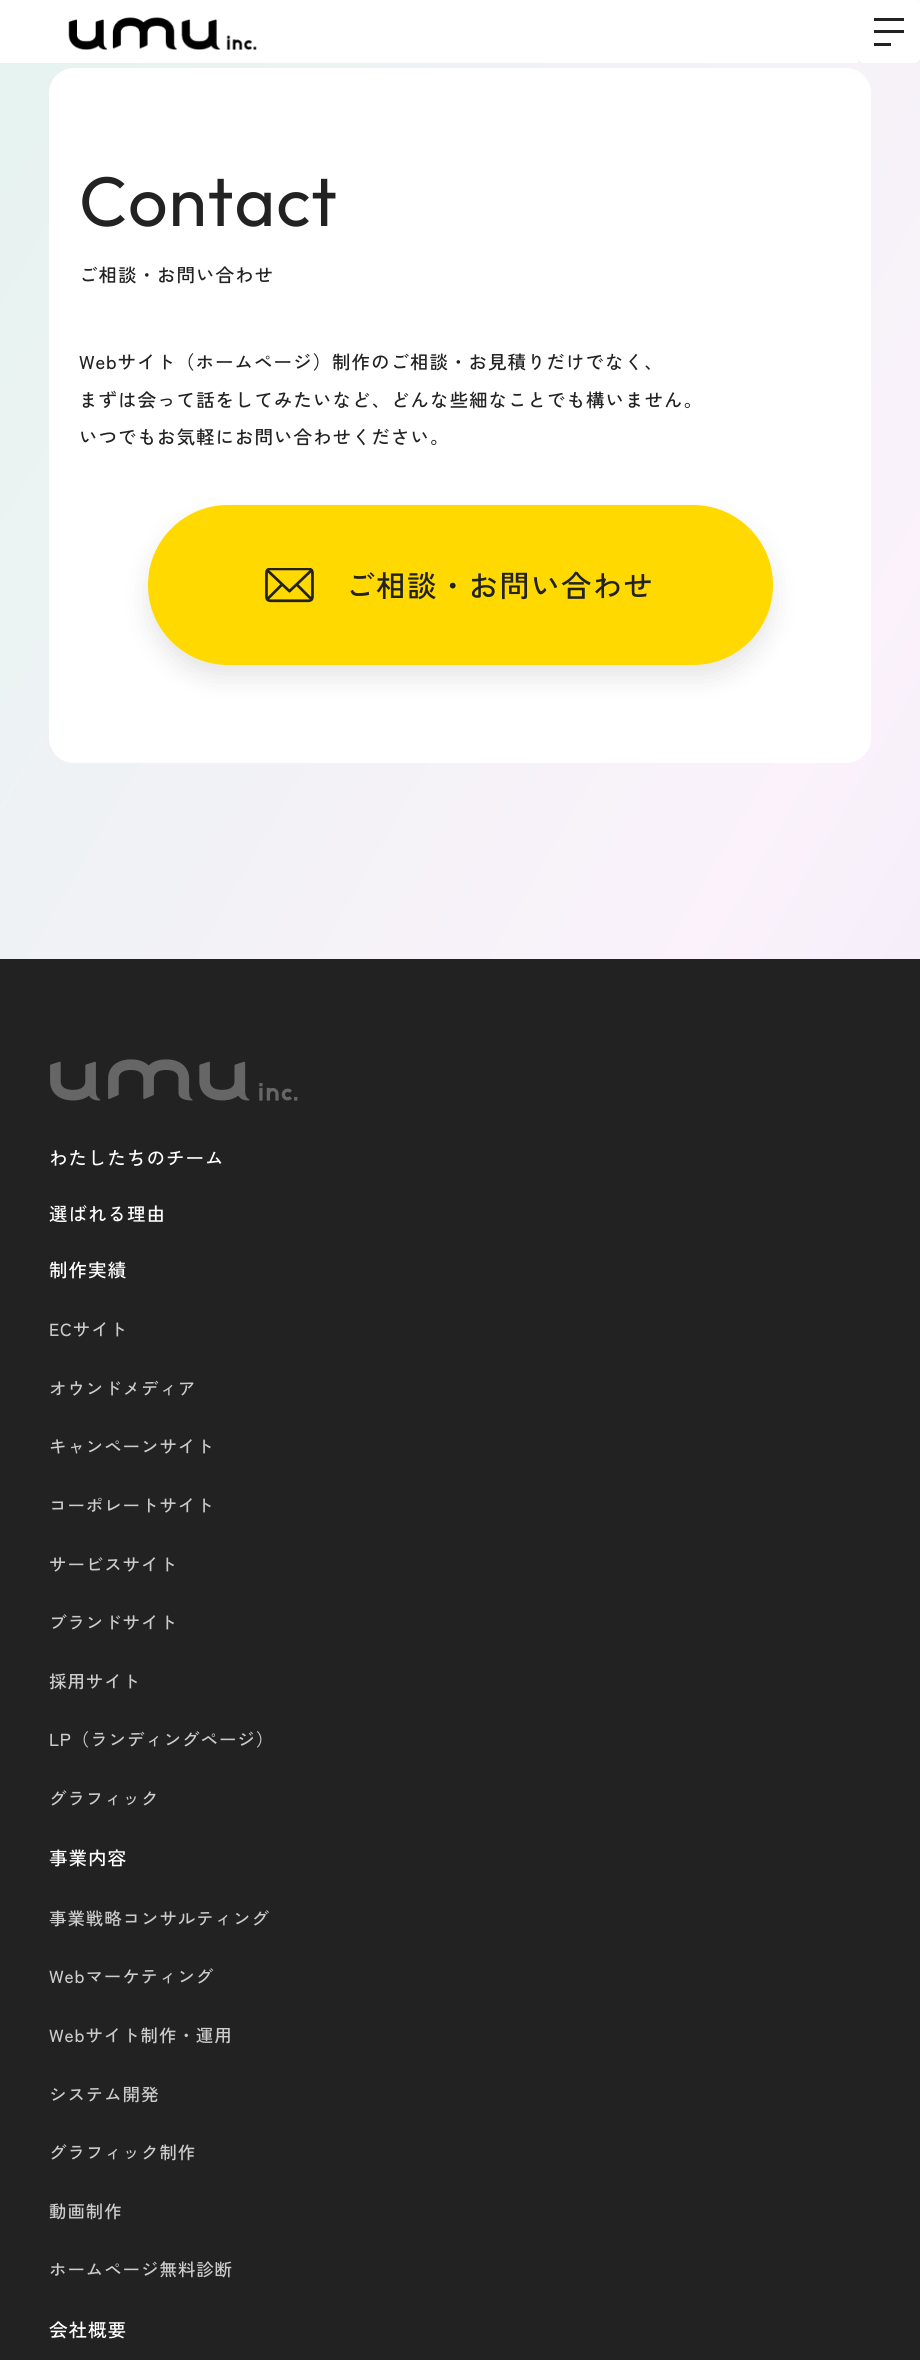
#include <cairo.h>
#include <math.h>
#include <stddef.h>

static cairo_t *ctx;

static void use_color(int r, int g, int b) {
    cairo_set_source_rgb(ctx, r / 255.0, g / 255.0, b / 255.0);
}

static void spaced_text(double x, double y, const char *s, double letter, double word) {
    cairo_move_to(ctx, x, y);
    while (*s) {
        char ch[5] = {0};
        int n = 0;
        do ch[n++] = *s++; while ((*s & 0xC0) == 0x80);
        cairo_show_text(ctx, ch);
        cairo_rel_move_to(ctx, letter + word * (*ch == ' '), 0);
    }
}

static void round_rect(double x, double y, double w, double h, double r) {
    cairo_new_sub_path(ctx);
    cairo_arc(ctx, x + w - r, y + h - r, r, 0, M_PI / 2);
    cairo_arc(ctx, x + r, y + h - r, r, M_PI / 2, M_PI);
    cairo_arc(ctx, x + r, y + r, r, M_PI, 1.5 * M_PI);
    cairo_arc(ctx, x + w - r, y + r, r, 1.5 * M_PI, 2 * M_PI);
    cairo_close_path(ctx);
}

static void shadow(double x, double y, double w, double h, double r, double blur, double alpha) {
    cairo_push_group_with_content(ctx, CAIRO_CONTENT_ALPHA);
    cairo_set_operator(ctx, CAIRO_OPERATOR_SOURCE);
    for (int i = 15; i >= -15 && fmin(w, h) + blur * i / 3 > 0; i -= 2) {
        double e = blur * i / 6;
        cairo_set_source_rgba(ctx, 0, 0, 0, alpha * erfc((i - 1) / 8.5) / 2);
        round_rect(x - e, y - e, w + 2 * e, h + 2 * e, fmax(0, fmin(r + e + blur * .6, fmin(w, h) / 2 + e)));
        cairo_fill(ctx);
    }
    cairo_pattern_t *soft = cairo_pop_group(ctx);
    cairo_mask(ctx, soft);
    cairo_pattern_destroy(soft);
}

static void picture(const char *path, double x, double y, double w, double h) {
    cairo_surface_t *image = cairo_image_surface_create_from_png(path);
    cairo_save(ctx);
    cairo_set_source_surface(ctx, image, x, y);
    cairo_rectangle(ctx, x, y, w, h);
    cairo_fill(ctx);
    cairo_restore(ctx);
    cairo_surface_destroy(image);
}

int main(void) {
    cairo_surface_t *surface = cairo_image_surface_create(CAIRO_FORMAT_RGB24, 920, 2360);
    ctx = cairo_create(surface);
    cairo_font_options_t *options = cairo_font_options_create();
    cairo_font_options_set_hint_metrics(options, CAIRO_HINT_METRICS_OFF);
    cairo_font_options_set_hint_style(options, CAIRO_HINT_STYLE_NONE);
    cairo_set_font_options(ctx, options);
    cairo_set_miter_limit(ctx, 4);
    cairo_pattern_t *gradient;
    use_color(255, 255, 255);
    cairo_paint(ctx);
    picture("img1.png", 68, 17, 189, 33);
    gradient = cairo_pattern_create_linear(-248, -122, 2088, 1226);
    cairo_pattern_add_color_stop_rgba(gradient, 0, 0.878, 0.953, 0.929, 1);
    cairo_pattern_add_color_stop_rgba(gradient, 0.5, 0.984, 0.949, 0.984, 1);
    cairo_pattern_add_color_stop_rgba(gradient, 1, 0.847, 0.871, 0.949, 1);
    cairo_set_source(ctx, gradient);
    cairo_pattern_destroy(gradient);
    cairo_rectangle(ctx, 0, 63, 920, 896);
    cairo_fill(ctx);
    use_color(255, 255, 255);
    round_rect(49, 68, 822, 695, 25);
    cairo_fill(ctx);
    cairo_save(ctx);
    cairo_rectangle(ctx, 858, 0, 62, 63);
    cairo_clip(ctx);
    cairo_set_fill_rule(ctx, CAIRO_FILL_RULE_EVEN_ODD);
    cairo_new_path(ctx);
    cairo_move_to(ctx, 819, 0);
    cairo_line_to(ctx, 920, 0);
    cairo_line_to(ctx, 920, 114);
    cairo_line_to(ctx, 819, 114);
    cairo_close_path(ctx);
    cairo_move_to(ctx, 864, 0);
    cairo_line_to(ctx, 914, 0);
    cairo_curve_to(ctx, 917.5, 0, 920, 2.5, 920, 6);
    cairo_line_to(ctx, 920, 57);
    cairo_curve_to(ctx, 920, 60.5, 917.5, 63, 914, 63);
    cairo_line_to(ctx, 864, 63);
    cairo_curve_to(ctx, 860.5, 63, 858, 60.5, 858, 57);
    cairo_line_to(ctx, 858, 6);
    cairo_curve_to(ctx, 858, 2.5, 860.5, 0, 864, 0);
    cairo_close_path(ctx);
    cairo_clip(ctx);
    use_color(0, 0, 0);
    shadow(858, 13, 62, 62, 6, 12.5, 0.1);
    cairo_restore(ctx);
    use_color(34, 34, 34);
    cairo_rectangle(ctx, 874, 30, 30, 3);
    cairo_fill(ctx);
    cairo_rectangle(ctx, 874, 18, 30, 3);
    cairo_fill(ctx);
    cairo_rectangle(ctx, 874, 43, 17, 3);
    cairo_fill(ctx);
    cairo_select_font_face(ctx, "Outfit", CAIRO_FONT_SLANT_NORMAL, CAIRO_FONT_WEIGHT_NORMAL);
    cairo_set_font_size(ctx, 70);
    spaced_text(79, 226, "Contact", 0.9, 0);
    cairo_select_font_face(ctx, "Zen Kaku Gothic New Medium", CAIRO_FONT_SLANT_NORMAL, CAIRO_FONT_WEIGHT_NORMAL);
    cairo_set_font_size(ctx, 18.6);
    spaced_text(79, 282, "ご相談・お問い合わせ", 0.9, 0);
    spaced_text(79, 369, "Webサイト（ホームページ）制作のご相談・お見積りだけでなく、", 0.9, 0);
    spaced_text(79, 407, "まずは会って話をしてみたいなど、どんな些細なことでも構いません。", 0.9, 0);
    spaced_text(79, 444, "いつでもお気軽にお問い合わせください。", 0.9, 0);
    use_color(0, 0, 0);
    shadow(148, 518, 625, 160, 80, 12.5, 0.1);
    use_color(255, 217, 0);
    round_rect(148, 505, 625, 160, 80);
    cairo_fill(ctx);
    picture("img2.png", 265, 568, 49, 35);
    cairo_set_font_size(ctx, 30);
    use_color(34, 34, 34);
    spaced_text(345, 597, "ご相談・お問い合わせ", 0.9, 0);
    cairo_rectangle(ctx, 0, 959, 920, 1401);
    cairo_fill(ctx);
    picture("img3.png", 50, 1059, 248, 42);
    cairo_set_font_size(ctx, 18.6);
    use_color(255, 255, 255);
    spaced_text(49, 1165, "わたしたちのチーム", 0.9, 0);
    spaced_text(49, 1221, "選ばれる理由", 0.9, 0);
    spaced_text(49, 1277, "制作実績", 0.9, 0);
    cairo_set_font_size(ctx, 17.5);
    use_color(204, 204, 204);
    spaced_text(49, 1336, "ECサイト", 0.9, 0);
    spaced_text(49, 1395, "オウンドメディア", 0.9, 0);
    spaced_text(49, 1453, "キャンペーンサイト", 0.9, 0);
    spaced_text(49, 1512, "コーポレートサイト", 0.9, 0);
    spaced_text(49, 1571, "サービスサイト", 0.9, 0);
    spaced_text(49, 1629, "ブランドサイト", 0.9, 0);
    spaced_text(49, 1688, "採用サイト", 0.9, 0);
    spaced_text(49, 1746, "LP（ランディングページ）", 0.9, 0);
    spaced_text(49, 1805, "グラフィック", 0.9, 0);
    cairo_set_font_size(ctx, 18.6);
    use_color(255, 255, 255);
    spaced_text(49, 1865, "事業内容", 0.9, 0);
    cairo_set_font_size(ctx, 17.5);
    use_color(204, 204, 204);
    spaced_text(49, 1925, "事業戦略コンサルティング", 0.9, 0);
    spaced_text(49, 1983, "Webマーケティング", 0.9, 0);
    spaced_text(49, 2042, "Webサイト制作・運用", 0.9, 0);
    spaced_text(49, 2101, "システム開発", 0.9, 0);
    spaced_text(49, 2159, "グラフィック制作", 0.9, 0);
    spaced_text(49, 2218, "動画制作", 0.9, 0);
    spaced_text(49, 2276, "ホームページ無料診断", 0.9, 0);
    cairo_set_font_size(ctx, 18.6);
    use_color(255, 255, 255);
    spaced_text(49, 2337, "会社概要", 0.9, 0);
    cairo_surface_write_to_png(surface, "result.png");
    cairo_font_options_destroy(options);
    cairo_destroy(ctx);
    cairo_surface_destroy(surface);
    return 0;
}
